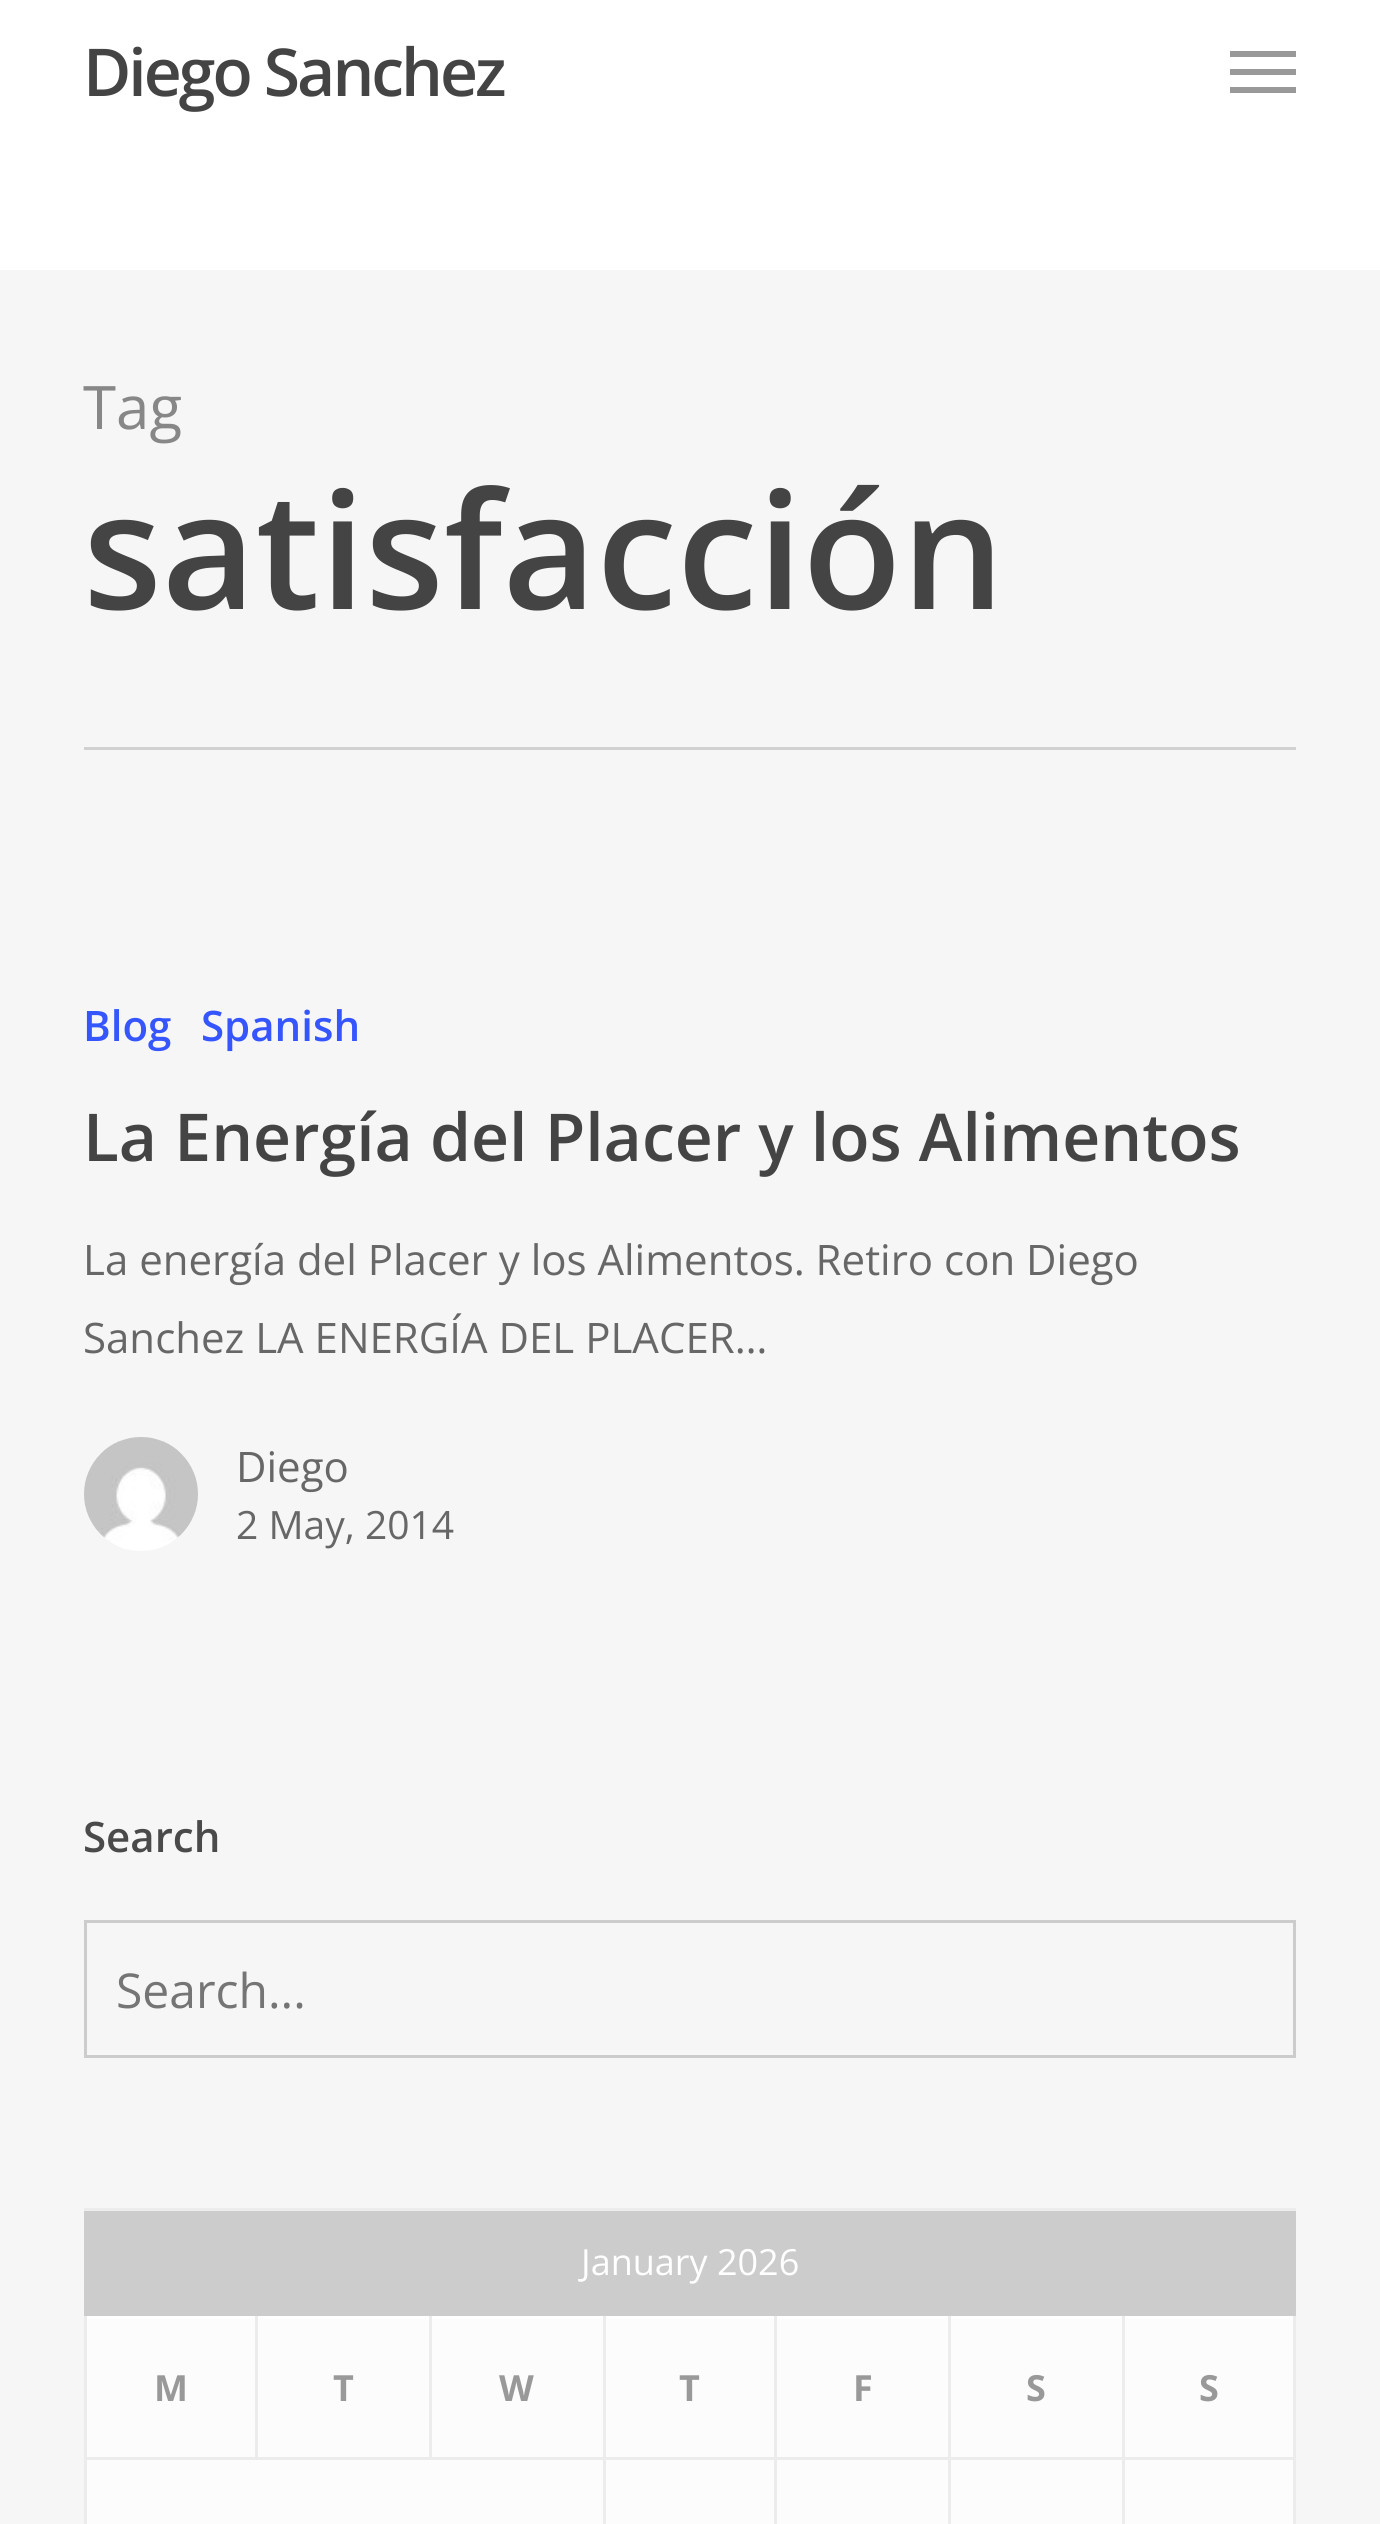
#include <cairo.h>
#include <math.h>
#include <stddef.h>

static cairo_t *ctx;

static void use_color(int r, int g, int b) {
    cairo_set_source_rgb(ctx, r / 255.0, g / 255.0, b / 255.0);
}

static void spaced_text(double x, double y, const char *s, double letter, double word) {
    cairo_move_to(ctx, x, y);
    while (*s) {
        char ch[5] = {0};
        int n = 0;
        do ch[n++] = *s++; while ((*s & 0xC0) == 0x80);
        cairo_show_text(ctx, ch);
        cairo_rel_move_to(ctx, letter + word * (*ch == ' '), 0);
    }
}

static void picture(const char *path, double x, double y, double w, double h) {
    cairo_surface_t *image = cairo_image_surface_create_from_png(path);
    cairo_save(ctx);
    cairo_set_source_surface(ctx, image, x, y);
    cairo_rectangle(ctx, x, y, w, h);
    cairo_fill(ctx);
    cairo_restore(ctx);
    cairo_surface_destroy(image);
}

int main(void) {
    cairo_surface_t *surface = cairo_image_surface_create(CAIRO_FORMAT_RGB24, 1380, 2524);
    ctx = cairo_create(surface);
    cairo_font_options_t *options = cairo_font_options_create();
    cairo_font_options_set_hint_metrics(options, CAIRO_HINT_METRICS_OFF);
    cairo_font_options_set_hint_style(options, CAIRO_HINT_STYLE_NONE);
    cairo_set_font_options(ctx, options);
    cairo_set_miter_limit(ctx, 4);
    use_color(255, 255, 255);
    cairo_paint(ctx);
    cairo_select_font_face(ctx, "Open Sans SemiBold", CAIRO_FONT_SLANT_NORMAL, CAIRO_FONT_WEIGHT_NORMAL);
    cairo_set_font_size(ctx, 66);
    use_color(68, 68, 68);
    spaced_text(83, 96, "Diego Sanchez", -3, 0);
    use_color(153, 153, 153);
    cairo_rectangle(ctx, 1230, 51, 66, 6);
    cairo_fill(ctx);
    cairo_rectangle(ctx, 1230, 87, 66, 6);
    cairo_fill(ctx);
    cairo_rectangle(ctx, 1230, 69, 66, 6);
    cairo_fill(ctx);
    use_color(246, 246, 246);
    cairo_rectangle(ctx, 0, 270, 1380, 2254);
    cairo_fill(ctx);
    use_color(209, 209, 209);
    cairo_rectangle(ctx, 84, 747, 1212, 3);
    cairo_fill(ctx);
    cairo_select_font_face(ctx, "Open Sans", CAIRO_FONT_SLANT_NORMAL, CAIRO_FONT_WEIGHT_NORMAL);
    cairo_set_font_size(ctx, 60);
    use_color(135, 135, 135);
    cairo_move_to(ctx, 83, 429);
    cairo_show_text(ctx, "Tag");
    cairo_select_font_face(ctx, "Open Sans SemiBold", CAIRO_FONT_SLANT_NORMAL, CAIRO_FONT_WEIGHT_NORMAL);
    cairo_set_font_size(ctx, 162);
    use_color(68, 68, 68);
    cairo_move_to(ctx, 83, 609);
    cairo_show_text(ctx, "satisfacción");
    cairo_set_font_size(ctx, 42);
    use_color(53, 85, 255);
    cairo_move_to(ctx, 83, 1041);
    cairo_show_text(ctx, "Blog");
    cairo_move_to(ctx, 201, 1041);
    cairo_show_text(ctx, "Spanish");
    cairo_set_font_size(ctx, 66);
    use_color(68, 68, 68);
    cairo_move_to(ctx, 83, 1161);
    cairo_show_text(ctx, "La Energía del Placer y los Alimentos");
    cairo_select_font_face(ctx, "Open Sans", CAIRO_FONT_SLANT_NORMAL, CAIRO_FONT_WEIGHT_NORMAL);
    cairo_set_font_size(ctx, 42);
    use_color(103, 103, 103);
    cairo_move_to(ctx, 83, 1275);
    cairo_show_text(ctx, "La energía del Placer y los Alimentos. Retiro con Diego");
    cairo_move_to(ctx, 83, 1353);
    cairo_show_text(ctx, "Sanchez LA ENERGÍA DEL PLACER…");
    picture("img1.png", 84, 1437, 114, 114);
    cairo_move_to(ctx, 236, 1482);
    cairo_show_text(ctx, "Diego");
    cairo_set_font_size(ctx, 39);
    cairo_move_to(ctx, 236, 1539);
    cairo_show_text(ctx, "2 May, 2014");
    cairo_select_font_face(ctx, "Open Sans SemiBold", CAIRO_FONT_SLANT_NORMAL, CAIRO_FONT_WEIGHT_NORMAL);
    cairo_set_font_size(ctx, 42);
    use_color(74, 74, 74);
    cairo_move_to(ctx, 83, 1852);
    cairo_show_text(ctx, "Search");
    cairo_rectangle(ctx, 85.5, 1921.5, 1209, 135);
    use_color(204, 204, 204);
    cairo_set_line_width(ctx, 3);
    cairo_stroke(ctx);
    cairo_select_font_face(ctx, "Open Sans", CAIRO_FONT_SLANT_NORMAL, CAIRO_FONT_WEIGHT_NORMAL);
    cairo_set_font_size(ctx, 48);
    use_color(117, 117, 117);
    cairo_move_to(ctx, 116, 2008);
    cairo_show_text(ctx, "Search...");
    use_color(255, 255, 255);
    cairo_rectangle(ctx, 87, 2316, 1206, 3);
    cairo_fill(ctx);
    use_color(236, 236, 236);
    cairo_rectangle(ctx, 84, 2208, 1212, 3);
    cairo_fill(ctx);
    use_color(204, 204, 204);
    cairo_rectangle(ctx, 84, 2211, 1212, 105);
    cairo_fill(ctx);
    cairo_set_font_size(ctx, 36);
    use_color(255, 255, 255);
    cairo_move_to(ctx, 581, 2275);
    cairo_show_text(ctx, "January 2026");
    use_color(252, 252, 252);
    cairo_rectangle(ctx, 87, 2460, 1206, 64);
    cairo_fill(ctx);
    use_color(236, 236, 236);
    cairo_rectangle(ctx, 603, 2457, 3, 67);
    cairo_fill(ctx);
    cairo_rectangle(ctx, 84, 2457, 3, 67);
    cairo_fill(ctx);
    cairo_rectangle(ctx, 774, 2457, 3, 67);
    cairo_fill(ctx);
    cairo_rectangle(ctx, 948, 2457, 3, 67);
    cairo_fill(ctx);
    cairo_rectangle(ctx, 1122, 2457, 3, 67);
    cairo_fill(ctx);
    cairo_rectangle(ctx, 1293, 2316, 3, 208);
    cairo_fill(ctx);
    use_color(252, 252, 252);
    cairo_rectangle(ctx, 87, 2319, 1206, 138);
    cairo_fill(ctx);
    use_color(236, 236, 236);
    cairo_rectangle(ctx, 1122, 2457, 174, 3);
    cairo_fill(ctx);
    cairo_rectangle(ctx, 1122, 2316, 3, 144);
    cairo_fill(ctx);
    cairo_rectangle(ctx, 948, 2457, 177, 3);
    cairo_fill(ctx);
    cairo_rectangle(ctx, 948, 2316, 3, 144);
    cairo_fill(ctx);
    cairo_rectangle(ctx, 774, 2457, 177, 3);
    cairo_fill(ctx);
    cairo_rectangle(ctx, 774, 2316, 3, 144);
    cairo_fill(ctx);
    cairo_rectangle(ctx, 603, 2457, 174, 3);
    cairo_fill(ctx);
    cairo_rectangle(ctx, 603, 2316, 3, 144);
    cairo_fill(ctx);
    cairo_rectangle(ctx, 429, 2457, 177, 3);
    cairo_fill(ctx);
    cairo_rectangle(ctx, 429, 2316, 3, 144);
    cairo_fill(ctx);
    cairo_rectangle(ctx, 255, 2457, 177, 3);
    cairo_fill(ctx);
    cairo_rectangle(ctx, 255, 2316, 3, 144);
    cairo_fill(ctx);
    cairo_rectangle(ctx, 84, 2457, 174, 3);
    cairo_fill(ctx);
    cairo_rectangle(ctx, 84, 2316, 3, 144);
    cairo_fill(ctx);
    cairo_select_font_face(ctx, "Open Sans", CAIRO_FONT_SLANT_NORMAL, CAIRO_FONT_WEIGHT_BOLD);
    use_color(153, 153, 153);
    cairo_move_to(ctx, 154, 2401);
    cairo_show_text(ctx, "M");
    cairo_move_to(ctx, 333, 2401);
    cairo_show_text(ctx, "T");
    cairo_move_to(ctx, 499, 2401);
    cairo_show_text(ctx, "W");
    cairo_move_to(ctx, 679, 2401);
    cairo_show_text(ctx, "T");
    cairo_move_to(ctx, 853, 2401);
    cairo_show_text(ctx, "F");
    cairo_move_to(ctx, 1026, 2401);
    cairo_show_text(ctx, "S");
    cairo_move_to(ctx, 1199, 2401);
    cairo_show_text(ctx, "S");
    cairo_surface_write_to_png(surface, "result.png");
    cairo_font_options_destroy(options);
    cairo_destroy(ctx);
    cairo_surface_destroy(surface);
    return 0;
}
